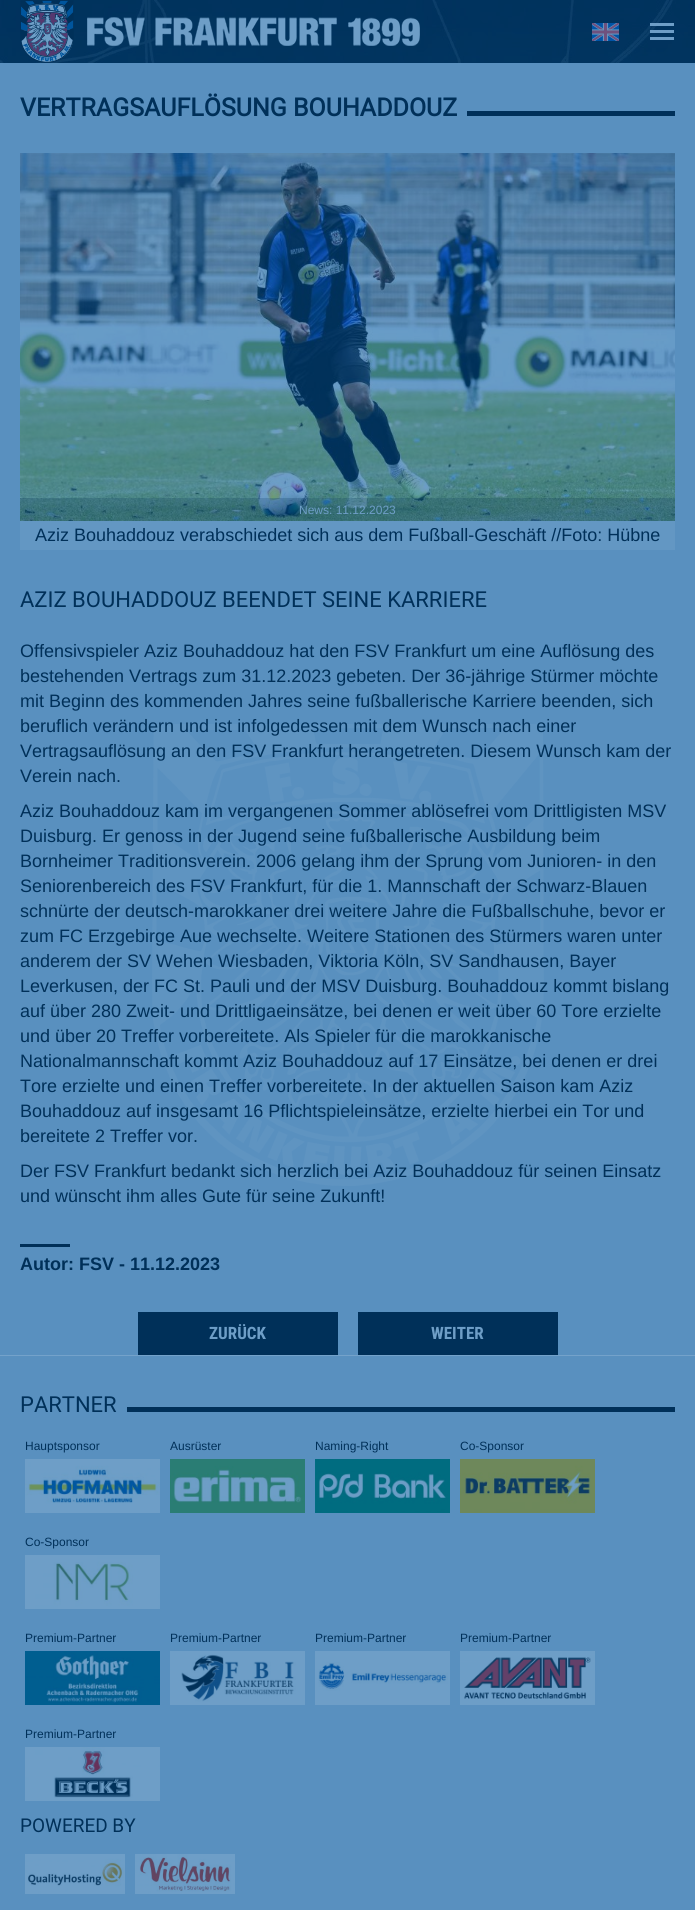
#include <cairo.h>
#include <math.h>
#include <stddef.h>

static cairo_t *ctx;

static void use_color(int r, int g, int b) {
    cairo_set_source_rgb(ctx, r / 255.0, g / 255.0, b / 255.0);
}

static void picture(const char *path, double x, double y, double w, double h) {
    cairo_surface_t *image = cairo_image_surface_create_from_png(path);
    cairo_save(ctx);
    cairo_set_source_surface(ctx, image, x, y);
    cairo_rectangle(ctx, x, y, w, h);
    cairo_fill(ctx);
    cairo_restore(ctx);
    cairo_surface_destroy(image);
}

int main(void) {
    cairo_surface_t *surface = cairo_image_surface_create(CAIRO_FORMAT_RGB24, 695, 1910);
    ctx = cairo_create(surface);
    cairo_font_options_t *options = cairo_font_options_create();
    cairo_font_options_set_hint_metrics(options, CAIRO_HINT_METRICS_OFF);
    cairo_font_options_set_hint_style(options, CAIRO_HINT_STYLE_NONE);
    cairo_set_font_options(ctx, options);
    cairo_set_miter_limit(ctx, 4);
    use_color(89, 144, 191);
    cairo_paint(ctx);
    picture("img1.png", 0, 0, 695, 63);
    picture("img2.png", 20, 0, 400, 63);
    picture("img3.png", 592, 23, 27, 18);
    use_color(110, 158, 199);
    cairo_rectangle(ctx, 650, 23, 24, 3);
    cairo_fill(ctx);
    cairo_rectangle(ctx, 650, 30, 24, 3);
    cairo_fill(ctx);
    cairo_rectangle(ctx, 650, 37, 24, 3);
    cairo_fill(ctx);
    cairo_select_font_face(ctx, "Roboto", CAIRO_FONT_SLANT_NORMAL, CAIRO_FONT_WEIGHT_BOLD);
    cairo_set_font_size(ctx, 25);
    use_color(0, 48, 89);
    cairo_move_to(ctx, 20, 116);
    cairo_show_text(ctx, "VERTRAGSAUFLÖSUNG BOUHADDOUZ");
    cairo_rectangle(ctx, 467, 111, 208, 5);
    cairo_fill(ctx);
    picture("img4.png", 20, 153, 655, 368);
    cairo_set_source_rgba(ctx, 0, 0.188, 0.349, 0.2);
    cairo_rectangle(ctx, 20, 498, 655, 23);
    cairo_fill(ctx);
    cairo_select_font_face(ctx, "Liberation Sans", CAIRO_FONT_SLANT_NORMAL, CAIRO_FONT_WEIGHT_NORMAL);
    cairo_set_font_size(ctx, 12);
    use_color(110, 158, 199);
    cairo_move_to(ctx, 299, 514);
    cairo_show_text(ctx, "News: 11.12.2023");
    use_color(99, 151, 195);
    cairo_rectangle(ctx, 20, 521, 655, 29);
    cairo_fill(ctx);
    cairo_set_font_size(ctx, 18);
    use_color(0, 48, 89);
    cairo_move_to(ctx, 35, 541);
    cairo_show_text(ctx, "Aziz Bouhaddouz verabschiedet sich aus dem Fußball-Geschäft //Foto: Hübne");
    cairo_select_font_face(ctx, "Roboto", CAIRO_FONT_SLANT_NORMAL, CAIRO_FONT_WEIGHT_NORMAL);
    cairo_set_font_size(ctx, 22);
    cairo_move_to(ctx, 20, 607);
    cairo_show_text(ctx, "AZIZ BOUHADDOUZ BEENDET SEINE KARRIERE");
    cairo_select_font_face(ctx, "Liberation Sans", CAIRO_FONT_SLANT_NORMAL, CAIRO_FONT_WEIGHT_NORMAL);
    cairo_set_font_size(ctx, 18);
    cairo_move_to(ctx, 20, 657);
    cairo_show_text(ctx, "Offensivspieler Aziz Bouhaddouz hat den FSV Frankfurt um eine Auflösung des");
    cairo_move_to(ctx, 20, 682);
    cairo_show_text(ctx, "bestehenden Vertrags zum 31.12.2023 gebeten. Der 36-jährige Stürmer möchte");
    cairo_move_to(ctx, 20, 707);
    cairo_show_text(ctx, "mit Beginn des kommenden Jahres seine fußballerische Karriere beenden, sich");
    picture("img17.png", 152, 724, 392, 462);
    cairo_move_to(ctx, 20, 732);
    cairo_show_text(ctx, "beruflich verändern und ist infolgedessen mit dem Wunsch nach einer");
    cairo_move_to(ctx, 20, 757);
    cairo_show_text(ctx, "Vertragsauflösung an den FSV Frankfurt herangetreten. Diesem Wunsch kam der");
    cairo_move_to(ctx, 20, 782);
    cairo_show_text(ctx, "Verein nach.");
    cairo_move_to(ctx, 20, 817);
    cairo_show_text(ctx, "Aziz Bouhaddouz kam im vergangenen Sommer ablösefrei vom Drittligisten MSV");
    cairo_move_to(ctx, 20, 842);
    cairo_show_text(ctx, "Duisburg. Er genoss in der Jugend seine fußballerische Ausbildung beim");
    cairo_move_to(ctx, 20, 867);
    cairo_show_text(ctx, "Bornheimer Traditionsverein. 2006 gelang ihm der Sprung vom Junioren- in den");
    cairo_move_to(ctx, 20, 892);
    cairo_show_text(ctx, "Seniorenbereich des FSV Frankfurt, für die 1. Mannschaft der Schwarz-Blauen");
    cairo_move_to(ctx, 20, 917);
    cairo_show_text(ctx, "schnürte der deutsch-marokkaner drei weitere Jahre die Fußballschuhe, bevor er");
    cairo_move_to(ctx, 20, 942);
    cairo_show_text(ctx, "zum FC Erzgebirge Aue wechselte. Weitere Stationen des Stürmers waren unter");
    cairo_move_to(ctx, 20, 967);
    cairo_show_text(ctx, "anderem der SV Wehen Wiesbaden, Viktoria Köln, SV Sandhausen, Bayer");
    cairo_move_to(ctx, 20, 992);
    cairo_show_text(ctx, "Leverkusen, der FC St. Pauli und der MSV Duisburg. Bouhaddouz kommt bislang");
    cairo_move_to(ctx, 20, 1017);
    cairo_show_text(ctx, "auf über 280 Zweit- und Drittligaeinsätze, bei denen er weit über 60 Tore erzielte");
    cairo_move_to(ctx, 20, 1042);
    cairo_show_text(ctx, "und über 20 Treffer vorbereitete. Als Spieler für die marokkanische");
    cairo_move_to(ctx, 20, 1067);
    cairo_show_text(ctx, "Nationalmannschaft kommt Aziz Bouhaddouz auf 17 Einsätze, bei denen er drei");
    cairo_move_to(ctx, 20, 1092);
    cairo_show_text(ctx, "Tore erzielte und einen Treffer vorbereitete. In der aktuellen Saison kam Aziz");
    cairo_move_to(ctx, 20, 1117);
    cairo_show_text(ctx, "Bouhaddouz auf insgesamt 16 Pflichtspieleinsätze, erzielte hierbei ein Tor und");
    cairo_move_to(ctx, 20, 1142);
    cairo_show_text(ctx, "bereitete 2 Treffer vor.");
    cairo_move_to(ctx, 20, 1177);
    cairo_show_text(ctx, "Der FSV Frankfurt bedankt sich herzlich bei Aziz Bouhaddouz für seinen Einsatz");
    cairo_move_to(ctx, 20, 1202);
    cairo_show_text(ctx, "und wünscht ihm alles Gute für seine Zukunft!");
    cairo_rectangle(ctx, 20, 1244, 50, 3);
    cairo_fill(ctx);
    cairo_select_font_face(ctx, "Liberation Sans", CAIRO_FONT_SLANT_NORMAL, CAIRO_FONT_WEIGHT_BOLD);
    cairo_move_to(ctx, 20, 1270);
    cairo_show_text(ctx, "Autor: FSV - 11.12.2023");
    cairo_rectangle(ctx, 138, 1312, 200, 43);
    cairo_fill(ctx);
    cairo_select_font_face(ctx, "Roboto Condensed", CAIRO_FONT_SLANT_NORMAL, CAIRO_FONT_WEIGHT_BOLD);
    cairo_set_font_size(ctx, 17);
    use_color(110, 158, 199);
    cairo_move_to(ctx, 209, 1339);
    cairo_show_text(ctx, "ZURÜCK");
    use_color(0, 48, 89);
    cairo_rectangle(ctx, 358, 1312, 200, 43);
    cairo_fill(ctx);
    use_color(110, 158, 199);
    cairo_move_to(ctx, 431, 1339);
    cairo_show_text(ctx, "WEITER");
    cairo_select_font_face(ctx, "Roboto", CAIRO_FONT_SLANT_NORMAL, CAIRO_FONT_WEIGHT_NORMAL);
    cairo_set_font_size(ctx, 22);
    use_color(0, 48, 89);
    cairo_move_to(ctx, 20, 1412);
    cairo_show_text(ctx, "PARTNER");
    cairo_rectangle(ctx, 127, 1407, 548, 5);
    cairo_fill(ctx);
    cairo_select_font_face(ctx, "Liberation Sans", CAIRO_FONT_SLANT_NORMAL, CAIRO_FONT_WEIGHT_NORMAL);
    cairo_set_font_size(ctx, 12);
    cairo_move_to(ctx, 25, 1450);
    cairo_show_text(ctx, "Hauptsponsor");
    picture("img5.png", 25, 1459, 135, 54);
    cairo_move_to(ctx, 170, 1450);
    cairo_show_text(ctx, "Ausrüster");
    picture("img6.png", 170, 1459, 135, 54);
    cairo_move_to(ctx, 315, 1450);
    cairo_show_text(ctx, "Naming-Right");
    picture("img7.png", 315, 1459, 135, 54);
    cairo_move_to(ctx, 460, 1450);
    cairo_show_text(ctx, "Co-Sponsor");
    picture("img8.png", 460, 1459, 135, 54);
    cairo_move_to(ctx, 25, 1546);
    cairo_show_text(ctx, "Co-Sponsor");
    picture("img9.png", 25, 1555, 135, 54);
    cairo_move_to(ctx, 25, 1642);
    cairo_show_text(ctx, "Premium-Partner");
    picture("img10.png", 25, 1651, 135, 54);
    cairo_move_to(ctx, 170, 1642);
    cairo_show_text(ctx, "Premium-Partner");
    picture("img11.png", 170, 1651, 135, 54);
    cairo_move_to(ctx, 315, 1642);
    cairo_show_text(ctx, "Premium-Partner");
    picture("img12.png", 315, 1651, 135, 54);
    cairo_move_to(ctx, 460, 1642);
    cairo_show_text(ctx, "Premium-Partner");
    picture("img13.png", 460, 1651, 135, 54);
    cairo_move_to(ctx, 25, 1738);
    cairo_show_text(ctx, "Premium-Partner");
    picture("img14.png", 25, 1747, 135, 54);
    cairo_select_font_face(ctx, "Roboto", CAIRO_FONT_SLANT_NORMAL, CAIRO_FONT_WEIGHT_NORMAL);
    cairo_set_font_size(ctx, 19);
    cairo_move_to(ctx, 20, 1832);
    cairo_show_text(ctx, "POWERED BY");
    picture("img15.png", 25, 1854, 100, 40);
    picture("img16.png", 135, 1854, 100, 40);
    use_color(116, 162, 202);
    cairo_new_path(ctx);
    cairo_move_to(ctx, -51, 1355);
    cairo_line_to(ctx, -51, 1356);
    cairo_line_to(ctx, 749, 1356);
    cairo_line_to(ctx, 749, 556);
    cairo_line_to(ctx, 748, 556);
    cairo_line_to(ctx, 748, 1355);
    cairo_close_path(ctx);
    cairo_fill(ctx);
    cairo_surface_write_to_png(surface, "result.png");
    cairo_font_options_destroy(options);
    cairo_destroy(ctx);
    cairo_surface_destroy(surface);
    return 0;
}
